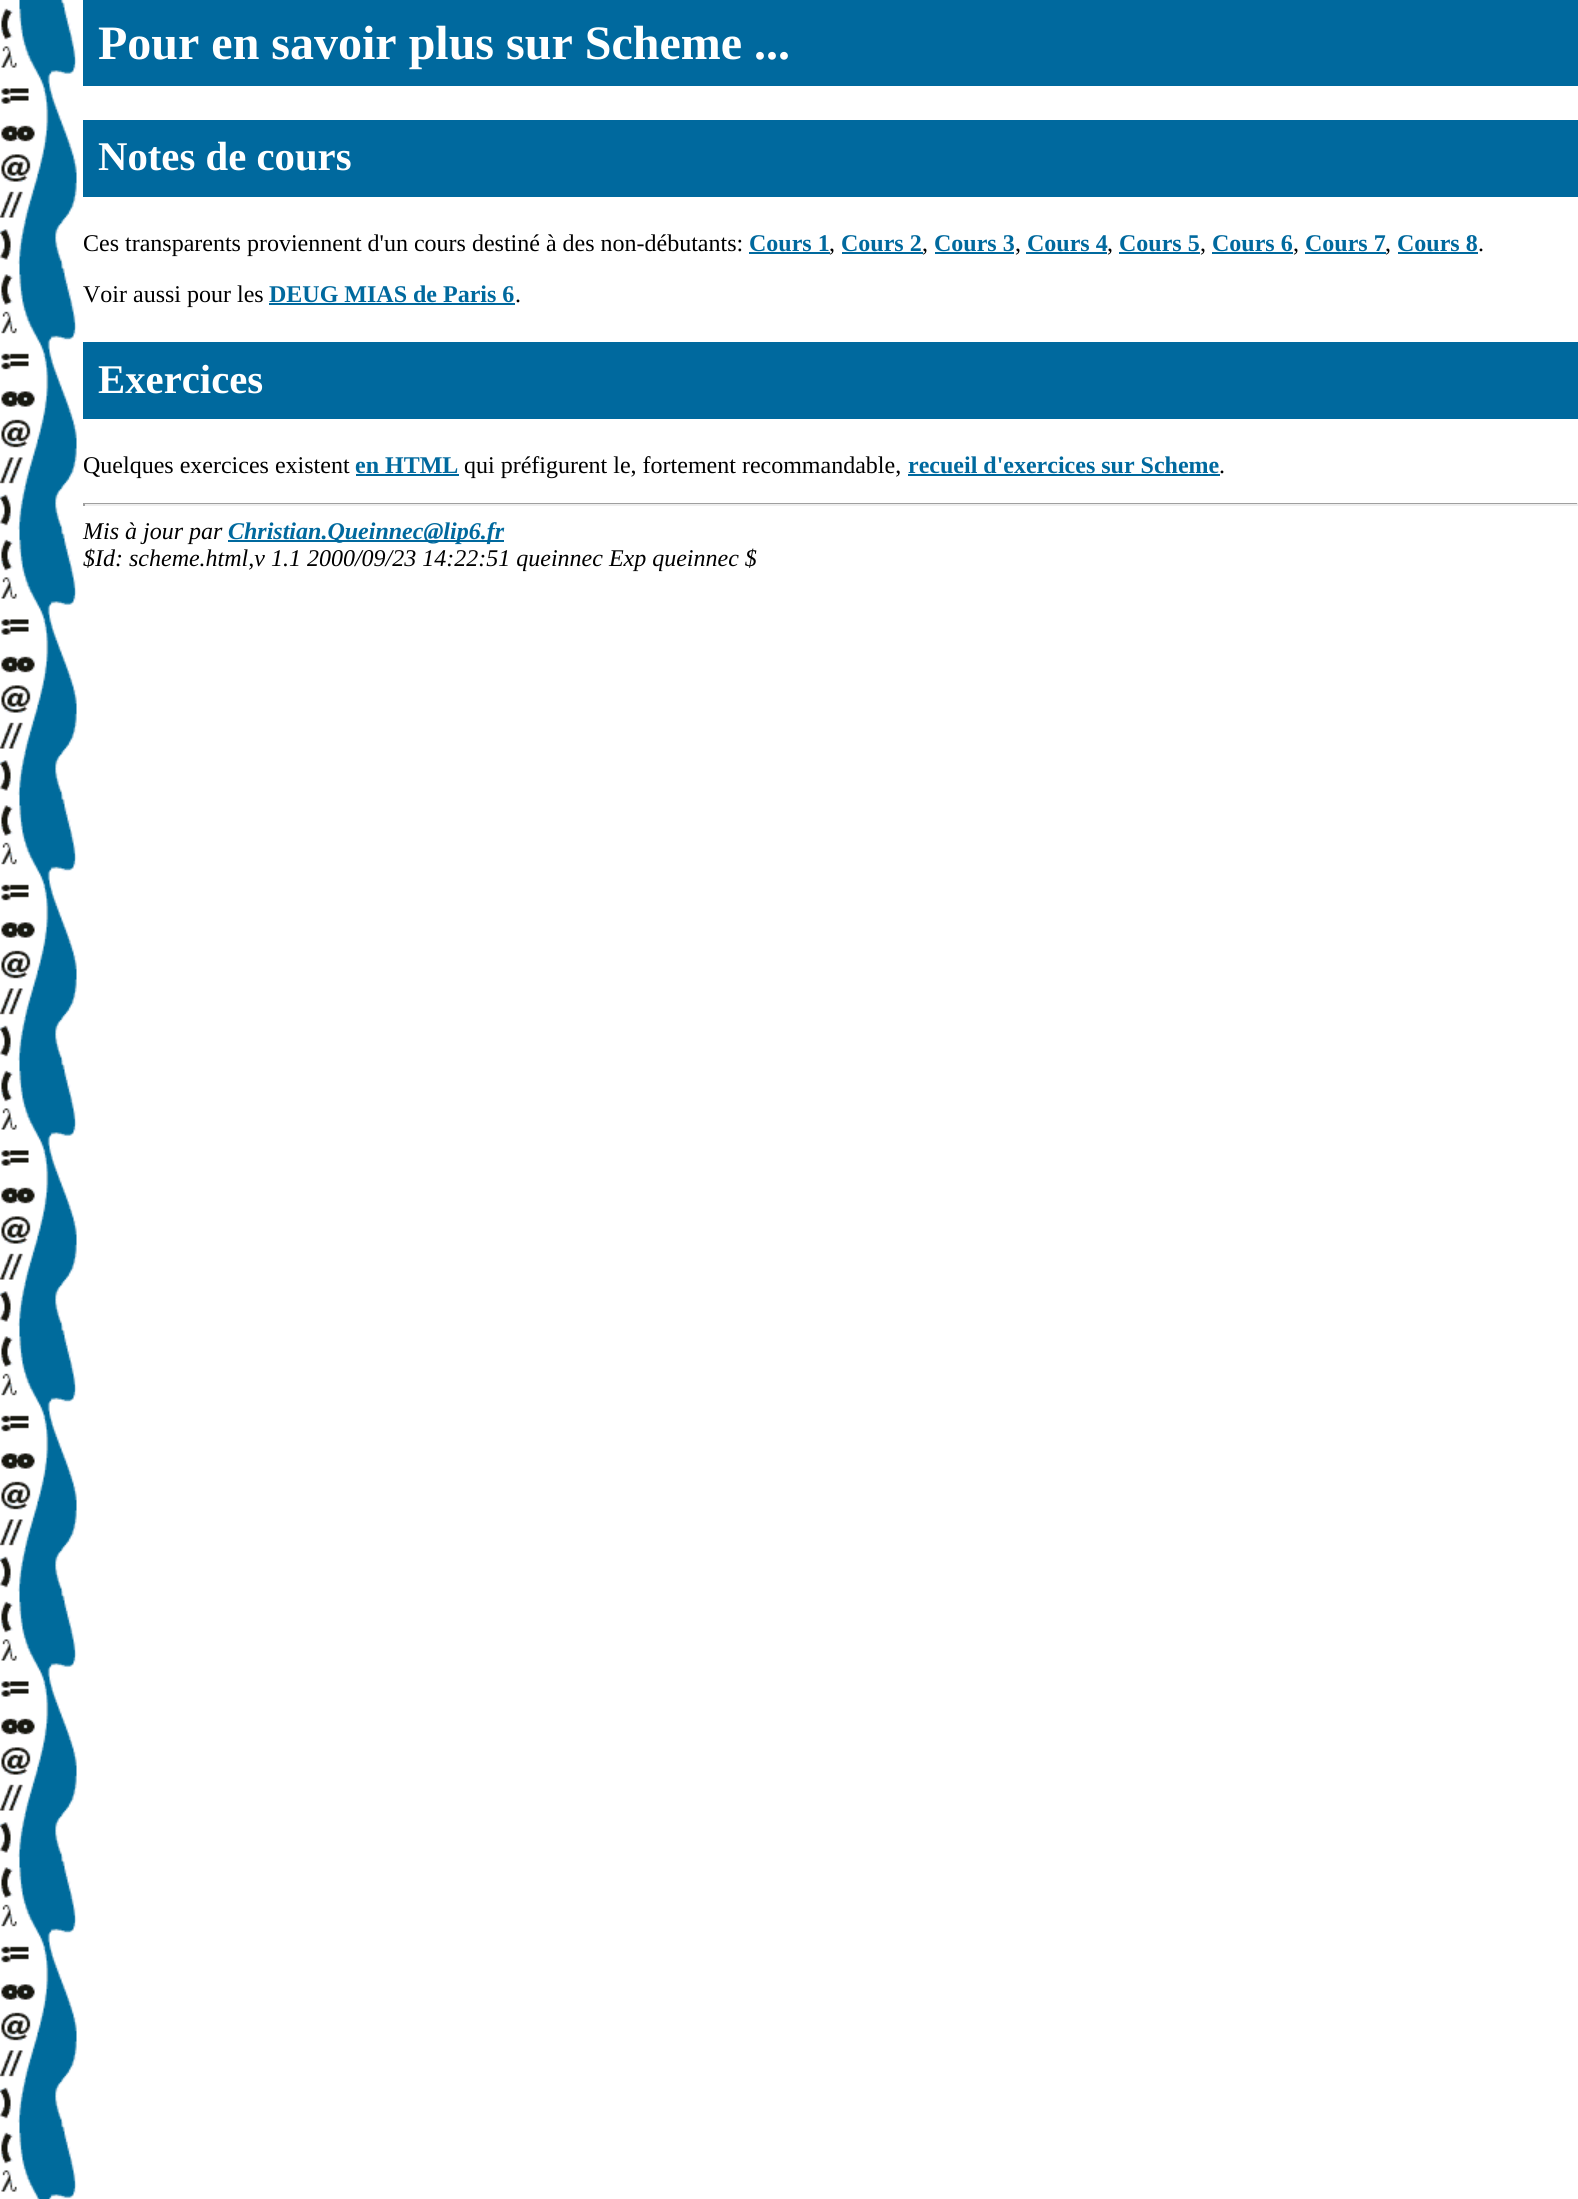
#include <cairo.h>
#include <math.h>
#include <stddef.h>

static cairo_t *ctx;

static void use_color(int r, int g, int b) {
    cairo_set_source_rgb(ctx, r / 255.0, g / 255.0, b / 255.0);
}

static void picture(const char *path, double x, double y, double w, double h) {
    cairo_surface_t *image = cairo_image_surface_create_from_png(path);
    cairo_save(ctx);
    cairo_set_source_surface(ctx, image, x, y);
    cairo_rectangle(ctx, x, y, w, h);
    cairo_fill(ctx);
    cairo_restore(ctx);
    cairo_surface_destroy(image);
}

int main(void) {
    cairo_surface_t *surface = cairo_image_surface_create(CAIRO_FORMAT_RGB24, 1578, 2199);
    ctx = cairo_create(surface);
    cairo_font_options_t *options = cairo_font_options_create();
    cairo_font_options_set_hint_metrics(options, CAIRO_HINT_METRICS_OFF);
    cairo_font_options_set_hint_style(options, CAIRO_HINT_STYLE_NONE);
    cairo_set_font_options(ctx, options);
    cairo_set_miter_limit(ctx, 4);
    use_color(255, 255, 255);
    cairo_paint(ctx);
    picture("img1.png", 0, 0, 77, 2199);
    use_color(0, 105, 158);
    cairo_rectangle(ctx, 83, 0, 1495, 86);
    cairo_fill(ctx);
    cairo_select_font_face(ctx, "Liberation Serif", CAIRO_FONT_SLANT_NORMAL, CAIRO_FONT_WEIGHT_BOLD);
    cairo_set_font_size(ctx, 48);
    use_color(255, 255, 255);
    cairo_move_to(ctx, 98, 59);
    cairo_show_text(ctx, "Pour en savoir plus sur Scheme ...");
    use_color(0, 105, 158);
    cairo_rectangle(ctx, 83, 120, 1495, 77);
    cairo_fill(ctx);
    cairo_set_font_size(ctx, 40.75);
    use_color(255, 255, 255);
    cairo_move_to(ctx, 98, 170);
    cairo_show_text(ctx, "Notes de cours");
    cairo_select_font_face(ctx, "Liberation Serif", CAIRO_FONT_SLANT_NORMAL, CAIRO_FONT_WEIGHT_NORMAL);
    cairo_set_font_size(ctx, 24);
    use_color(0, 0, 0);
    cairo_move_to(ctx, 83, 251);
    cairo_show_text(ctx, "Ces transparents proviennent d'un cours destiné à des non-débutants:");
    cairo_select_font_face(ctx, "Liberation Serif", CAIRO_FONT_SLANT_NORMAL, CAIRO_FONT_WEIGHT_BOLD);
    use_color(0, 105, 158);
    cairo_move_to(ctx, 749, 251);
    cairo_show_text(ctx, "Cours 1");
    cairo_rectangle(ctx, 749, 252, 81, 2);
    cairo_fill(ctx);
    cairo_select_font_face(ctx, "Liberation Serif", CAIRO_FONT_SLANT_NORMAL, CAIRO_FONT_WEIGHT_NORMAL);
    use_color(0, 0, 0);
    cairo_move_to(ctx, 829, 251);
    cairo_show_text(ctx, ",");
    cairo_select_font_face(ctx, "Liberation Serif", CAIRO_FONT_SLANT_NORMAL, CAIRO_FONT_WEIGHT_BOLD);
    use_color(0, 105, 158);
    cairo_move_to(ctx, 841, 251);
    cairo_show_text(ctx, "Cours 2");
    cairo_rectangle(ctx, 842, 252, 81, 2);
    cairo_fill(ctx);
    cairo_select_font_face(ctx, "Liberation Serif", CAIRO_FONT_SLANT_NORMAL, CAIRO_FONT_WEIGHT_NORMAL);
    use_color(0, 0, 0);
    cairo_move_to(ctx, 922, 251);
    cairo_show_text(ctx, ",");
    cairo_select_font_face(ctx, "Liberation Serif", CAIRO_FONT_SLANT_NORMAL, CAIRO_FONT_WEIGHT_BOLD);
    use_color(0, 105, 158);
    cairo_move_to(ctx, 934, 251);
    cairo_show_text(ctx, "Cours 3");
    cairo_rectangle(ctx, 935, 252, 79, 2);
    cairo_fill(ctx);
    cairo_select_font_face(ctx, "Liberation Serif", CAIRO_FONT_SLANT_NORMAL, CAIRO_FONT_WEIGHT_NORMAL);
    use_color(0, 0, 0);
    cairo_move_to(ctx, 1015, 251);
    cairo_show_text(ctx, ",");
    cairo_select_font_face(ctx, "Liberation Serif", CAIRO_FONT_SLANT_NORMAL, CAIRO_FONT_WEIGHT_BOLD);
    use_color(0, 105, 158);
    cairo_move_to(ctx, 1027, 251);
    cairo_show_text(ctx, "Cours 4");
    cairo_rectangle(ctx, 1026, 252, 81, 2);
    cairo_fill(ctx);
    cairo_select_font_face(ctx, "Liberation Serif", CAIRO_FONT_SLANT_NORMAL, CAIRO_FONT_WEIGHT_NORMAL);
    use_color(0, 0, 0);
    cairo_move_to(ctx, 1107, 251);
    cairo_show_text(ctx, ",");
    cairo_select_font_face(ctx, "Liberation Serif", CAIRO_FONT_SLANT_NORMAL, CAIRO_FONT_WEIGHT_BOLD);
    use_color(0, 105, 158);
    cairo_move_to(ctx, 1119, 251);
    cairo_show_text(ctx, "Cours 5");
    cairo_rectangle(ctx, 1119, 252, 81, 2);
    cairo_fill(ctx);
    cairo_select_font_face(ctx, "Liberation Serif", CAIRO_FONT_SLANT_NORMAL, CAIRO_FONT_WEIGHT_NORMAL);
    use_color(0, 0, 0);
    cairo_move_to(ctx, 1200, 251);
    cairo_show_text(ctx, ",");
    cairo_select_font_face(ctx, "Liberation Serif", CAIRO_FONT_SLANT_NORMAL, CAIRO_FONT_WEIGHT_BOLD);
    use_color(0, 105, 158);
    cairo_move_to(ctx, 1212, 251);
    cairo_show_text(ctx, "Cours 6");
    cairo_rectangle(ctx, 1212, 252, 81, 2);
    cairo_fill(ctx);
    cairo_select_font_face(ctx, "Liberation Serif", CAIRO_FONT_SLANT_NORMAL, CAIRO_FONT_WEIGHT_NORMAL);
    use_color(0, 0, 0);
    cairo_move_to(ctx, 1293, 251);
    cairo_show_text(ctx, ",");
    cairo_select_font_face(ctx, "Liberation Serif", CAIRO_FONT_SLANT_NORMAL, CAIRO_FONT_WEIGHT_BOLD);
    use_color(0, 105, 158);
    cairo_move_to(ctx, 1305, 251);
    cairo_show_text(ctx, "Cours 7");
    cairo_rectangle(ctx, 1305, 252, 81, 2);
    cairo_fill(ctx);
    cairo_select_font_face(ctx, "Liberation Serif", CAIRO_FONT_SLANT_NORMAL, CAIRO_FONT_WEIGHT_NORMAL);
    use_color(0, 0, 0);
    cairo_move_to(ctx, 1385, 251);
    cairo_show_text(ctx, ",");
    cairo_select_font_face(ctx, "Liberation Serif", CAIRO_FONT_SLANT_NORMAL, CAIRO_FONT_WEIGHT_BOLD);
    use_color(0, 105, 158);
    cairo_move_to(ctx, 1397, 251);
    cairo_show_text(ctx, "Cours 8");
    cairo_rectangle(ctx, 1398, 252, 80, 2);
    cairo_fill(ctx);
    cairo_select_font_face(ctx, "Liberation Serif", CAIRO_FONT_SLANT_NORMAL, CAIRO_FONT_WEIGHT_NORMAL);
    use_color(0, 0, 0);
    cairo_move_to(ctx, 1478, 251);
    cairo_show_text(ctx, ".");
    cairo_move_to(ctx, 83, 302);
    cairo_show_text(ctx, "Voir aussi pour les");
    cairo_select_font_face(ctx, "Liberation Serif", CAIRO_FONT_SLANT_NORMAL, CAIRO_FONT_WEIGHT_BOLD);
    use_color(0, 105, 158);
    cairo_move_to(ctx, 269, 302);
    cairo_show_text(ctx, "DEUG MIAS de Paris 6");
    cairo_rectangle(ctx, 269, 303, 246, 2);
    cairo_fill(ctx);
    cairo_select_font_face(ctx, "Liberation Serif", CAIRO_FONT_SLANT_NORMAL, CAIRO_FONT_WEIGHT_NORMAL);
    use_color(0, 0, 0);
    cairo_move_to(ctx, 515, 302);
    cairo_show_text(ctx, ".");
    use_color(0, 105, 158);
    cairo_rectangle(ctx, 83, 342, 1495, 77);
    cairo_fill(ctx);
    cairo_select_font_face(ctx, "Liberation Serif", CAIRO_FONT_SLANT_NORMAL, CAIRO_FONT_WEIGHT_BOLD);
    cairo_set_font_size(ctx, 40.75);
    use_color(255, 255, 255);
    cairo_move_to(ctx, 98, 393);
    cairo_show_text(ctx, "Exercices");
    cairo_select_font_face(ctx, "Liberation Serif", CAIRO_FONT_SLANT_NORMAL, CAIRO_FONT_WEIGHT_NORMAL);
    cairo_set_font_size(ctx, 24);
    use_color(0, 0, 0);
    cairo_move_to(ctx, 83, 473);
    cairo_show_text(ctx, "Quelques exercices existent");
    cairo_select_font_face(ctx, "Liberation Serif", CAIRO_FONT_SLANT_NORMAL, CAIRO_FONT_WEIGHT_BOLD);
    use_color(0, 105, 158);
    cairo_move_to(ctx, 355, 473);
    cairo_show_text(ctx, "en HTML");
    cairo_rectangle(ctx, 356, 474, 103, 2);
    cairo_fill(ctx);
    cairo_select_font_face(ctx, "Liberation Serif", CAIRO_FONT_SLANT_NORMAL, CAIRO_FONT_WEIGHT_NORMAL);
    use_color(0, 0, 0);
    cairo_move_to(ctx, 464, 473);
    cairo_show_text(ctx, "qui préfigurent le, fortement recommandable,");
    cairo_select_font_face(ctx, "Liberation Serif", CAIRO_FONT_SLANT_NORMAL, CAIRO_FONT_WEIGHT_BOLD);
    use_color(0, 105, 158);
    cairo_move_to(ctx, 908, 473);
    cairo_show_text(ctx, "recueil d'exercices sur Scheme");
    cairo_rectangle(ctx, 908, 474, 312, 2);
    cairo_fill(ctx);
    cairo_select_font_face(ctx, "Liberation Serif", CAIRO_FONT_SLANT_NORMAL, CAIRO_FONT_WEIGHT_NORMAL);
    use_color(0, 0, 0);
    cairo_move_to(ctx, 1219, 473);
    cairo_show_text(ctx, ".");
    use_color(159, 159, 159);
    cairo_rectangle(ctx, 83, 503, 1495, 1);
    cairo_fill(ctx);
    use_color(238, 238, 238);
    cairo_rectangle(ctx, 1577, 503, 1, 3);
    cairo_fill(ctx);
    cairo_rectangle(ctx, 83, 504, 1495, 2);
    cairo_fill(ctx);
    use_color(159, 159, 159);
    cairo_rectangle(ctx, 83, 503, 2, 3);
    cairo_fill(ctx);
    cairo_select_font_face(ctx, "Liberation Serif", CAIRO_FONT_SLANT_ITALIC, CAIRO_FONT_WEIGHT_NORMAL);
    use_color(0, 0, 0);
    cairo_move_to(ctx, 83, 539);
    cairo_show_text(ctx, "Mis à jour par");
    use_color(0, 105, 158);
    cairo_rectangle(ctx, 228, 540, 276, 2);
    cairo_fill(ctx);
    cairo_select_font_face(ctx, "Liberation Serif", CAIRO_FONT_SLANT_ITALIC, CAIRO_FONT_WEIGHT_BOLD);
    cairo_move_to(ctx, 228, 539);
    cairo_show_text(ctx, "Christian.Queinnec@lip6.fr");
    cairo_select_font_face(ctx, "Liberation Serif", CAIRO_FONT_SLANT_ITALIC, CAIRO_FONT_WEIGHT_NORMAL);
    use_color(0, 0, 0);
    cairo_move_to(ctx, 83, 566);
    cairo_show_text(ctx, "$Id: scheme.html,v 1.1 2000/09/23 14:22:51 queinnec Exp queinnec $");
    cairo_surface_write_to_png(surface, "result.png");
    cairo_font_options_destroy(options);
    cairo_destroy(ctx);
    cairo_surface_destroy(surface);
    return 0;
}
